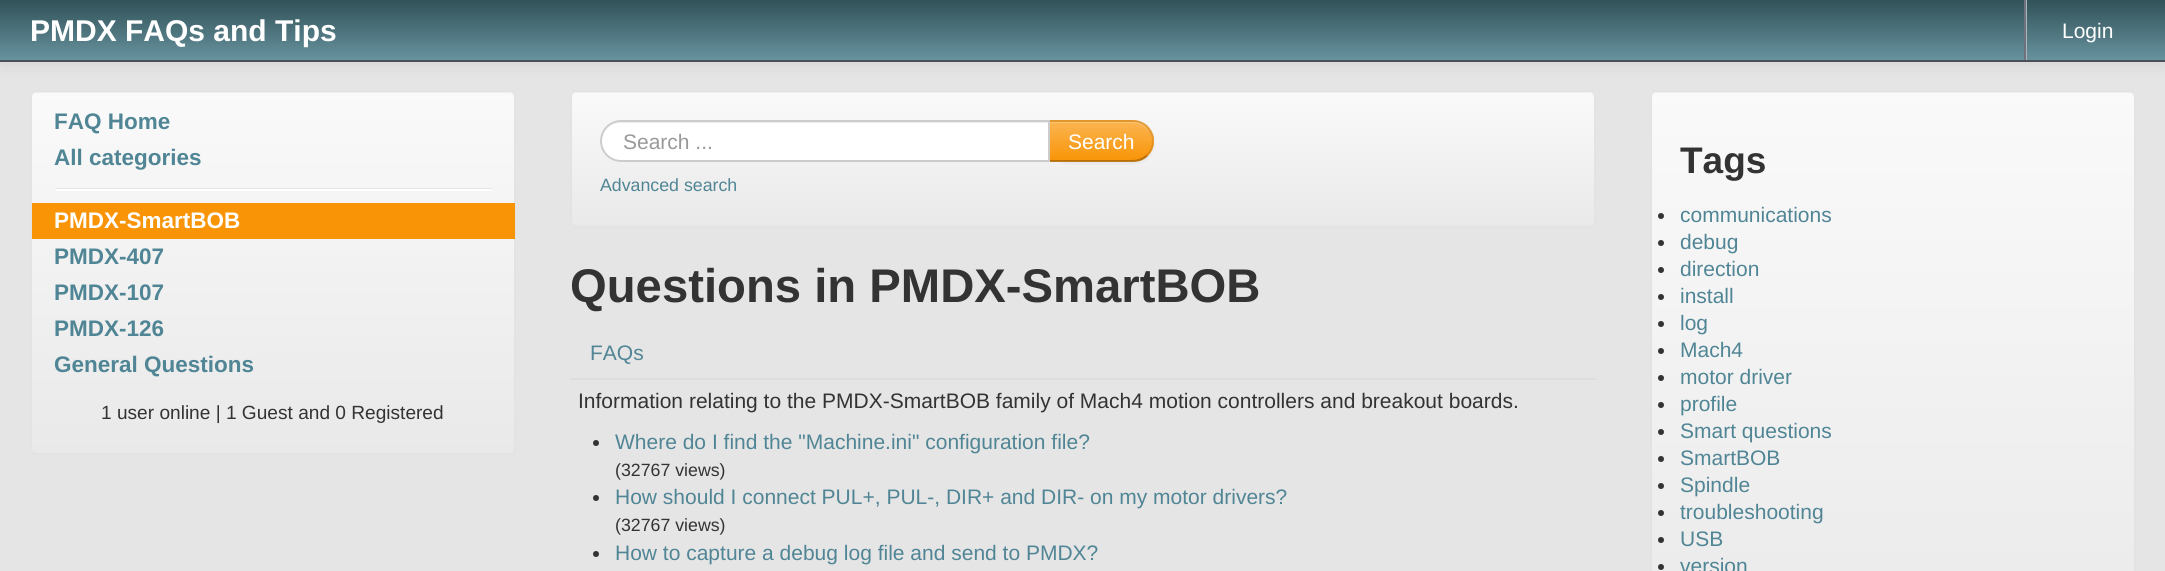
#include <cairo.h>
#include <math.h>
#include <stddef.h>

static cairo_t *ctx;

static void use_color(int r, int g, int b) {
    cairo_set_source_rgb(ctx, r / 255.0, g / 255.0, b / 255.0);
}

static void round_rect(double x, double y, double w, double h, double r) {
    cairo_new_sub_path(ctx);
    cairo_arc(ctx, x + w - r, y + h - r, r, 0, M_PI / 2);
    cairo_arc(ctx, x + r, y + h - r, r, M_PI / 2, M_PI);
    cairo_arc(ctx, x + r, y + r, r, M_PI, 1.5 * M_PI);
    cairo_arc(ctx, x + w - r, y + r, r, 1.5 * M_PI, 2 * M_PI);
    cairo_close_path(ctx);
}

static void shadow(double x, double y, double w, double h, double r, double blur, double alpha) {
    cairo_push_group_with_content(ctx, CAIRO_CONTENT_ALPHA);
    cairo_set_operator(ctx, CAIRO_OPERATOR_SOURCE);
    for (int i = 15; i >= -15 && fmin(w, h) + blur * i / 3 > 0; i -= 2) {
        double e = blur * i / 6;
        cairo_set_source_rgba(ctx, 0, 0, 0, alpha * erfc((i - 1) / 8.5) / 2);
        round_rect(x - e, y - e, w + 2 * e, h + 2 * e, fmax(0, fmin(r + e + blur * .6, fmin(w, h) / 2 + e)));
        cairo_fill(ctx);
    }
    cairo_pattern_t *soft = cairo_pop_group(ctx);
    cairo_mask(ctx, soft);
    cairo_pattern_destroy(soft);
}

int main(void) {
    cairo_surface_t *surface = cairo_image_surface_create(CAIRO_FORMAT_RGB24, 2165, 571);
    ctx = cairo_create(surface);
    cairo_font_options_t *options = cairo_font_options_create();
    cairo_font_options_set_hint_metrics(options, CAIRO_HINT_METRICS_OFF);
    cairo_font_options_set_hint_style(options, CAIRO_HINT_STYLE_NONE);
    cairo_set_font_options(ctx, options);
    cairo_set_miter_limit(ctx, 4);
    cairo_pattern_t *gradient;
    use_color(229, 229, 229);
    cairo_paint(ctx);
    use_color(0, 0, 0);
    shadow(0, 2, 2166, 61, 0, 7.5, 0.1);
    gradient = cairo_pattern_create_linear(1083, 0, 1083, 60);
    cairo_pattern_add_color_stop_rgba(gradient, 0, 0.192, 0.322, 0.345, 1);
    cairo_pattern_add_color_stop_rgba(gradient, 1, 0.404, 0.573, 0.62, 1);
    cairo_set_source(ctx, gradient);
    cairo_pattern_destroy(gradient);
    cairo_rectangle(ctx, 0, 0, 2165, 60);
    cairo_fill(ctx);
    use_color(76, 81, 89);
    cairo_rectangle(ctx, 0, 60, 2165, 2);
    cairo_fill(ctx);
    cairo_select_font_face(ctx, "Liberation Sans", CAIRO_FONT_SLANT_NORMAL, CAIRO_FONT_WEIGHT_BOLD);
    cairo_set_font_size(ctx, 30);
    use_color(255, 255, 255);
    cairo_move_to(ctx, 30, 41);
    cairo_show_text(ctx, "PMDX FAQs and Tips");
    use_color(175, 179, 186);
    cairo_rectangle(ctx, 2026, 0, 1, 60);
    cairo_fill(ctx);
    use_color(108, 115, 126);
    cairo_rectangle(ctx, 2024, 0, 2, 60);
    cairo_fill(ctx);
    cairo_select_font_face(ctx, "Liberation Sans", CAIRO_FONT_SLANT_NORMAL, CAIRO_FONT_WEIGHT_NORMAL);
    cairo_set_font_size(ctx, 21);
    use_color(255, 255, 255);
    cairo_move_to(ctx, 2062, 38);
    cairo_show_text(ctx, "Login");
    cairo_save(ctx);
    round_rect(30, 90, 486, 365, 6);
    cairo_clip(ctx);
    gradient = cairo_pattern_create_linear(273, 91, 273, 453);
    cairo_pattern_add_color_stop_rgba(gradient, 0, 0.98, 0.98, 0.98, 1);
    cairo_pattern_add_color_stop_rgba(gradient, 1, 0.914, 0.914, 0.914, 1);
    cairo_set_source(ctx, gradient);
    cairo_pattern_destroy(gradient);
    cairo_rectangle(ctx, 30, 92, 486, 361);
    cairo_fill(ctx);
    cairo_restore(ctx);
    cairo_set_source_rgba(ctx, 0, 0, 0, 0.05);
    cairo_new_path(ctx);
    cairo_move_to(ctx, 36, 93);
    cairo_line_to(ctx, 510, 93);
    cairo_curve_to(ctx, 512, 93, 514, 95, 514, 98);
    cairo_line_to(ctx, 514, 451);
    cairo_curve_to(ctx, 515, 450, 515, 449, 515, 448);
    cairo_line_to(ctx, 515, 97);
    cairo_curve_to(ctx, 515, 94, 513, 92, 510, 92);
    cairo_line_to(ctx, 37, 92);
    cairo_curve_to(ctx, 34, 92, 32, 94, 32, 97);
    cairo_line_to(ctx, 32, 98);
    cairo_curve_to(ctx, 32, 95, 34, 93, 36, 93);
    cairo_close_path(ctx);
    cairo_fill(ctx);
    round_rect(31, 91, 484, 363, 5);
    use_color(227, 227, 227);
    cairo_stroke(ctx);
    cairo_select_font_face(ctx, "Liberation Sans", CAIRO_FONT_SLANT_NORMAL, CAIRO_FONT_WEIGHT_BOLD);
    cairo_set_font_size(ctx, 22.5);
    use_color(80, 133, 149);
    cairo_move_to(ctx, 54, 129);
    cairo_show_text(ctx, "FAQ Home");
    cairo_move_to(ctx, 54, 165);
    cairo_show_text(ctx, "All categories");
    use_color(229, 229, 229);
    cairo_rectangle(ctx, 56, 188, 435, 1);
    cairo_fill(ctx);
    use_color(255, 255, 255);
    cairo_rectangle(ctx, 56, 189, 435, 2);
    cairo_fill(ctx);
    use_color(248, 148, 6);
    cairo_rectangle(ctx, 32, 203, 483, 36);
    cairo_fill(ctx);
    use_color(255, 255, 255);
    cairo_move_to(ctx, 54, 228);
    cairo_show_text(ctx, "PMDX-SmartBOB");
    use_color(80, 133, 149);
    cairo_move_to(ctx, 54, 264);
    cairo_show_text(ctx, "PMDX-407");
    cairo_move_to(ctx, 54, 300);
    cairo_show_text(ctx, "PMDX-107");
    cairo_move_to(ctx, 54, 336);
    cairo_show_text(ctx, "PMDX-126");
    cairo_move_to(ctx, 54, 372);
    cairo_show_text(ctx, "General Questions");
    cairo_select_font_face(ctx, "Liberation Sans", CAIRO_FONT_SLANT_NORMAL, CAIRO_FONT_WEIGHT_NORMAL);
    cairo_set_font_size(ctx, 19.1);
    use_color(51, 51, 51);
    cairo_move_to(ctx, 101, 419);
    cairo_show_text(ctx, "1 user online | 1 Guest and 0 Registered");
    cairo_save(ctx);
    round_rect(570, 90, 1026, 138, 6);
    cairo_clip(ctx);
    gradient = cairo_pattern_create_linear(1083, 91, 1083, 227);
    cairo_pattern_add_color_stop_rgba(gradient, 0, 0.98, 0.98, 0.98, 1);
    cairo_pattern_add_color_stop_rgba(gradient, 1, 0.914, 0.914, 0.914, 1);
    cairo_set_source(ctx, gradient);
    cairo_pattern_destroy(gradient);
    cairo_rectangle(ctx, 570, 92, 1026, 135);
    cairo_fill(ctx);
    cairo_restore(ctx);
    cairo_set_source_rgba(ctx, 0, 0, 0, 0.05);
    cairo_new_path(ctx);
    cairo_move_to(ctx, 576, 93);
    cairo_line_to(ctx, 1590, 93);
    cairo_curve_to(ctx, 1592, 93, 1594, 95, 1594, 98);
    cairo_line_to(ctx, 1594, 225);
    cairo_curve_to(ctx, 1595, 224, 1595, 223, 1595, 222);
    cairo_line_to(ctx, 1595, 97);
    cairo_curve_to(ctx, 1595, 94, 1593, 92, 1590, 92);
    cairo_line_to(ctx, 577, 92);
    cairo_curve_to(ctx, 574, 92, 572, 94, 572, 97);
    cairo_line_to(ctx, 572, 98);
    cairo_curve_to(ctx, 572, 95, 574, 93, 576, 93);
    cairo_close_path(ctx);
    cairo_fill(ctx);
    round_rect(571, 91, 1024, 136, 5);
    use_color(227, 227, 227);
    cairo_stroke(ctx);
    use_color(0, 0, 0);
    shadow(1049, 122, 105, 42, 21, 1.5, 0.05);
    use_color(250, 167, 50);
    cairo_new_path(ctx);
    cairo_move_to(ctx, 1049, 120);
    cairo_line_to(ctx, 1133, 120);
    cairo_curve_to(ctx, 1144.5, 120, 1154, 129.5, 1154, 141);
    cairo_curve_to(ctx, 1154, 152.5, 1144.5, 162, 1133, 162);
    cairo_line_to(ctx, 1049, 162);
    cairo_close_path(ctx);
    cairo_fill(ctx);
    cairo_save(ctx);
    cairo_new_path(ctx);
    cairo_move_to(ctx, 1049, 120);
    cairo_line_to(ctx, 1133, 120);
    cairo_curve_to(ctx, 1144.5, 120, 1154, 129.5, 1154, 141);
    cairo_curve_to(ctx, 1154, 152.5, 1144.5, 162, 1133, 162);
    cairo_line_to(ctx, 1049, 162);
    cairo_close_path(ctx);
    cairo_clip(ctx);
    gradient = cairo_pattern_create_linear(1101, 122, 1101, 161);
    cairo_pattern_add_color_stop_rgba(gradient, 0, 0.984, 0.706, 0.314, 1);
    cairo_pattern_add_color_stop_rgba(gradient, 1, 0.973, 0.58, 0.024, 1);
    cairo_set_source(ctx, gradient);
    cairo_pattern_destroy(gradient);
    cairo_rectangle(ctx, 1050, 122, 104, 39);
    cairo_fill(ctx);
    cairo_restore(ctx);
    cairo_set_source_rgba(ctx, 1, 1, 1, 0.2);
    cairo_new_path(ctx);
    cairo_move_to(ctx, 1050, 123);
    cairo_line_to(ctx, 1132, 123);
    cairo_curve_to(ctx, 1143, 123, 1152, 132, 1152, 142);
    cairo_curve_to(ctx, 1152, 133, 1145, 124, 1136, 122);
    cairo_line_to(ctx, 1050, 122);
    cairo_close_path(ctx);
    cairo_fill(ctx);
    cairo_set_source_rgba(ctx, 0, 0, 0, 0.1);
    cairo_new_path(ctx);
    cairo_move_to(ctx, 1048, 120);
    cairo_line_to(ctx, 1050, 122);
    cairo_line_to(ctx, 1132, 122);
    cairo_curve_to(ctx, 1138, 122, 1142, 124, 1146, 127);
    cairo_line_to(ctx, 1148, 126);
    cairo_curve_to(ctx, 1144, 122, 1138, 120, 1132, 120);
    cairo_close_path(ctx);
    cairo_fill(ctx);
    cairo_new_path(ctx);
    cairo_move_to(ctx, 1153.5, 145.5);
    cairo_curve_to(ctx, 1152.5, 149.5, 1150.5, 153, 1147.5, 156);
    cairo_line_to(ctx, 1146, 154.5);
    cairo_curve_to(ctx, 1154, 147.5, 1154, 134.5, 1146, 127.5);
    cairo_line_to(ctx, 1147.5, 126);
    cairo_curve_to(ctx, 1150.5, 129, 1152.5, 132.5, 1153.5, 136.5);
    cairo_close_path(ctx);
    cairo_fill(ctx);
    cairo_set_source_rgba(ctx, 0, 0, 0, 0.25);
    cairo_new_path(ctx);
    cairo_move_to(ctx, 1048, 162);
    cairo_line_to(ctx, 1132, 162);
    cairo_curve_to(ctx, 1138, 162, 1144, 160, 1148, 156);
    cairo_line_to(ctx, 1146, 155);
    cairo_curve_to(ctx, 1142, 158, 1138, 160, 1132, 160);
    cairo_line_to(ctx, 1050, 160);
    cairo_close_path(ctx);
    cairo_fill(ctx);
    use_color(255, 255, 255);
    cairo_new_path(ctx);
    cairo_move_to(ctx, 621, 120);
    cairo_line_to(ctx, 1050, 120);
    cairo_line_to(ctx, 1050, 162);
    cairo_line_to(ctx, 621, 162);
    cairo_curve_to(ctx, 609.5, 162, 600, 152.5, 600, 141);
    cairo_curve_to(ctx, 600, 129.5, 609.5, 120, 621, 120);
    cairo_close_path(ctx);
    cairo_fill(ctx);
    use_color(236, 236, 236);
    cairo_new_path(ctx);
    cairo_move_to(ctx, 621, 123);
    cairo_line_to(ctx, 1048, 123);
    cairo_line_to(ctx, 1048, 161);
    cairo_line_to(ctx, 1049, 161);
    cairo_line_to(ctx, 1049, 122);
    cairo_line_to(ctx, 622, 122);
    cairo_curve_to(ctx, 611, 122, 602, 131, 602, 142);
    cairo_curve_to(ctx, 602, 132, 610, 123, 621, 123);
    cairo_close_path(ctx);
    cairo_fill(ctx);
    cairo_new_path(ctx);
    cairo_move_to(ctx, 621, 121);
    cairo_line_to(ctx, 1049, 121);
    cairo_line_to(ctx, 1049, 161);
    cairo_line_to(ctx, 621, 161);
    cairo_curve_to(ctx, 610, 161, 601, 152, 601, 141);
    cairo_curve_to(ctx, 601, 130, 610, 121, 621, 121);
    cairo_close_path(ctx);
    use_color(204, 204, 204);
    cairo_stroke(ctx);
    cairo_set_font_size(ctx, 21);
    use_color(153, 153, 153);
    cairo_move_to(ctx, 623, 149);
    cairo_show_text(ctx, "Search ...");
    use_color(255, 255, 255);
    cairo_move_to(ctx, 1068, 149);
    cairo_show_text(ctx, "Search");
    cairo_set_font_size(ctx, 17.75);
    use_color(80, 133, 149);
    cairo_move_to(ctx, 600, 191);
    cairo_show_text(ctx, "Advanced search");
    cairo_select_font_face(ctx, "Liberation Sans", CAIRO_FONT_SLANT_NORMAL, CAIRO_FONT_WEIGHT_BOLD);
    cairo_set_font_size(ctx, 47.25);
    use_color(51, 51, 51);
    cairo_move_to(ctx, 570, 302);
    cairo_show_text(ctx, "Questions in PMDX-SmartBOB");
    use_color(221, 221, 221);
    cairo_rectangle(ctx, 570, 378, 1026, 2);
    cairo_fill(ctx);
    cairo_select_font_face(ctx, "Liberation Sans", CAIRO_FONT_SLANT_NORMAL, CAIRO_FONT_WEIGHT_NORMAL);
    cairo_set_font_size(ctx, 21);
    use_color(80, 133, 149);
    cairo_move_to(ctx, 590, 360);
    cairo_show_text(ctx, "FAQs");
    use_color(51, 51, 51);
    cairo_move_to(ctx, 578, 408);
    cairo_show_text(ctx, "Information relating to the PMDX-SmartBOB family of Mach4 motion controllers and breakout boards.");
    cairo_new_path(ctx);
    cairo_arc(ctx, 596, 443, 3, 0, 2 * M_PI);
    cairo_fill(ctx);
    use_color(80, 133, 149);
    cairo_move_to(ctx, 615, 449);
    cairo_show_text(ctx, "Where do I find the \"Machine.ini\" configuration file?");
    cairo_set_font_size(ctx, 17.75);
    use_color(51, 51, 51);
    cairo_move_to(ctx, 615, 476);
    cairo_show_text(ctx, "(32767 views)");
    cairo_new_path(ctx);
    cairo_arc(ctx, 596, 498, 3, 0, 2 * M_PI);
    cairo_fill(ctx);
    cairo_set_font_size(ctx, 21);
    use_color(80, 133, 149);
    cairo_move_to(ctx, 615, 504);
    cairo_show_text(ctx, "How should I connect PUL+, PUL-, DIR+ and DIR- on my motor drivers?");
    cairo_set_font_size(ctx, 17.75);
    use_color(51, 51, 51);
    cairo_move_to(ctx, 615, 531);
    cairo_show_text(ctx, "(32767 views)");
    cairo_new_path(ctx);
    cairo_arc(ctx, 596, 554, 3, 0, 2 * M_PI);
    cairo_fill(ctx);
    cairo_set_font_size(ctx, 21);
    use_color(80, 133, 149);
    cairo_move_to(ctx, 615, 560);
    cairo_show_text(ctx, "How to capture a debug log file and send to PMDX?");
    cairo_save(ctx);
    round_rect(1650, 90, 486, 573, 6);
    cairo_clip(ctx);
    gradient = cairo_pattern_create_linear(1893, 91, 1893, 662);
    cairo_pattern_add_color_stop_rgba(gradient, 0, 0.98, 0.98, 0.98, 1);
    cairo_pattern_add_color_stop_rgba(gradient, 1, 0.914, 0.914, 0.914, 1);
    cairo_set_source(ctx, gradient);
    cairo_pattern_destroy(gradient);
    cairo_rectangle(ctx, 1650, 92, 486, 479);
    cairo_fill(ctx);
    cairo_restore(ctx);
    cairo_set_source_rgba(ctx, 0, 0, 0, 0.05);
    cairo_new_path(ctx);
    cairo_move_to(ctx, 1656, 93);
    cairo_line_to(ctx, 2130, 93);
    cairo_curve_to(ctx, 2132, 93, 2134, 95, 2134, 98);
    cairo_line_to(ctx, 2134, 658);
    cairo_line_to(ctx, 2133, 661);
    cairo_curve_to(ctx, 2134, 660, 2135, 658, 2135, 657);
    cairo_line_to(ctx, 2135, 97);
    cairo_curve_to(ctx, 2135, 94, 2133, 92, 2130, 92);
    cairo_line_to(ctx, 1657, 92);
    cairo_curve_to(ctx, 1654, 92, 1652, 94, 1652, 97);
    cairo_line_to(ctx, 1652, 98);
    cairo_curve_to(ctx, 1652, 95, 1654, 93, 1656, 93);
    cairo_close_path(ctx);
    cairo_fill(ctx);
    round_rect(1651, 91, 484, 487, 5);
    use_color(227, 227, 227);
    cairo_stroke(ctx);
    cairo_select_font_face(ctx, "Liberation Sans", CAIRO_FONT_SLANT_NORMAL, CAIRO_FONT_WEIGHT_BOLD);
    cairo_set_font_size(ctx, 37);
    use_color(51, 51, 51);
    cairo_move_to(ctx, 1680, 173);
    cairo_show_text(ctx, "Tags");
    cairo_new_path(ctx);
    cairo_arc(ctx, 1661, 216, 3, 0, 2 * M_PI);
    cairo_fill(ctx);
    cairo_select_font_face(ctx, "Liberation Sans", CAIRO_FONT_SLANT_NORMAL, CAIRO_FONT_WEIGHT_NORMAL);
    cairo_set_font_size(ctx, 21);
    use_color(80, 133, 149);
    cairo_move_to(ctx, 1680, 222);
    cairo_show_text(ctx, "communications");
    use_color(51, 51, 51);
    cairo_new_path(ctx);
    cairo_arc(ctx, 1661, 243, 3, 0, 2 * M_PI);
    cairo_fill(ctx);
    use_color(80, 133, 149);
    cairo_move_to(ctx, 1680, 249);
    cairo_show_text(ctx, "debug");
    use_color(51, 51, 51);
    cairo_new_path(ctx);
    cairo_arc(ctx, 1661, 270, 3, 0, 2 * M_PI);
    cairo_fill(ctx);
    use_color(80, 133, 149);
    cairo_move_to(ctx, 1680, 276);
    cairo_show_text(ctx, "direction");
    use_color(51, 51, 51);
    cairo_new_path(ctx);
    cairo_arc(ctx, 1661, 297, 3, 0, 2 * M_PI);
    cairo_fill(ctx);
    use_color(80, 133, 149);
    cairo_move_to(ctx, 1680, 303);
    cairo_show_text(ctx, "install");
    use_color(51, 51, 51);
    cairo_new_path(ctx);
    cairo_arc(ctx, 1661, 324, 3, 0, 2 * M_PI);
    cairo_fill(ctx);
    use_color(80, 133, 149);
    cairo_move_to(ctx, 1680, 330);
    cairo_show_text(ctx, "log");
    use_color(51, 51, 51);
    cairo_new_path(ctx);
    cairo_arc(ctx, 1661, 351, 3, 0, 2 * M_PI);
    cairo_fill(ctx);
    use_color(80, 133, 149);
    cairo_move_to(ctx, 1680, 357);
    cairo_show_text(ctx, "Mach4");
    use_color(51, 51, 51);
    cairo_new_path(ctx);
    cairo_arc(ctx, 1661, 378, 3, 0, 2 * M_PI);
    cairo_fill(ctx);
    use_color(80, 133, 149);
    cairo_move_to(ctx, 1680, 384);
    cairo_show_text(ctx, "motor driver");
    use_color(51, 51, 51);
    cairo_new_path(ctx);
    cairo_arc(ctx, 1661, 405, 3, 0, 2 * M_PI);
    cairo_fill(ctx);
    use_color(80, 133, 149);
    cairo_move_to(ctx, 1680, 411);
    cairo_show_text(ctx, "profile");
    use_color(51, 51, 51);
    cairo_new_path(ctx);
    cairo_arc(ctx, 1661, 432, 3, 0, 2 * M_PI);
    cairo_fill(ctx);
    use_color(80, 133, 149);
    cairo_move_to(ctx, 1680, 438);
    cairo_show_text(ctx, "Smart questions");
    use_color(51, 51, 51);
    cairo_new_path(ctx);
    cairo_arc(ctx, 1661, 459, 3, 0, 2 * M_PI);
    cairo_fill(ctx);
    use_color(80, 133, 149);
    cairo_move_to(ctx, 1680, 465);
    cairo_show_text(ctx, "SmartBOB");
    use_color(51, 51, 51);
    cairo_new_path(ctx);
    cairo_arc(ctx, 1661, 486, 3, 0, 2 * M_PI);
    cairo_fill(ctx);
    use_color(80, 133, 149);
    cairo_move_to(ctx, 1680, 492);
    cairo_show_text(ctx, "Spindle");
    use_color(51, 51, 51);
    cairo_new_path(ctx);
    cairo_arc(ctx, 1661, 513, 3, 0, 2 * M_PI);
    cairo_fill(ctx);
    use_color(80, 133, 149);
    cairo_move_to(ctx, 1680, 519);
    cairo_show_text(ctx, "troubleshooting");
    use_color(51, 51, 51);
    cairo_new_path(ctx);
    cairo_arc(ctx, 1661, 540, 3, 0, 2 * M_PI);
    cairo_fill(ctx);
    use_color(80, 133, 149);
    cairo_move_to(ctx, 1680, 546);
    cairo_show_text(ctx, "USB");
    use_color(51, 51, 51);
    cairo_new_path(ctx);
    cairo_arc(ctx, 1661, 567, 3, 0, 2 * M_PI);
    cairo_fill(ctx);
    use_color(80, 133, 149);
    cairo_move_to(ctx, 1680, 573);
    cairo_show_text(ctx, "version");
    cairo_surface_write_to_png(surface, "result.png");
    cairo_font_options_destroy(options);
    cairo_destroy(ctx);
    cairo_surface_destroy(surface);
    return 0;
}
